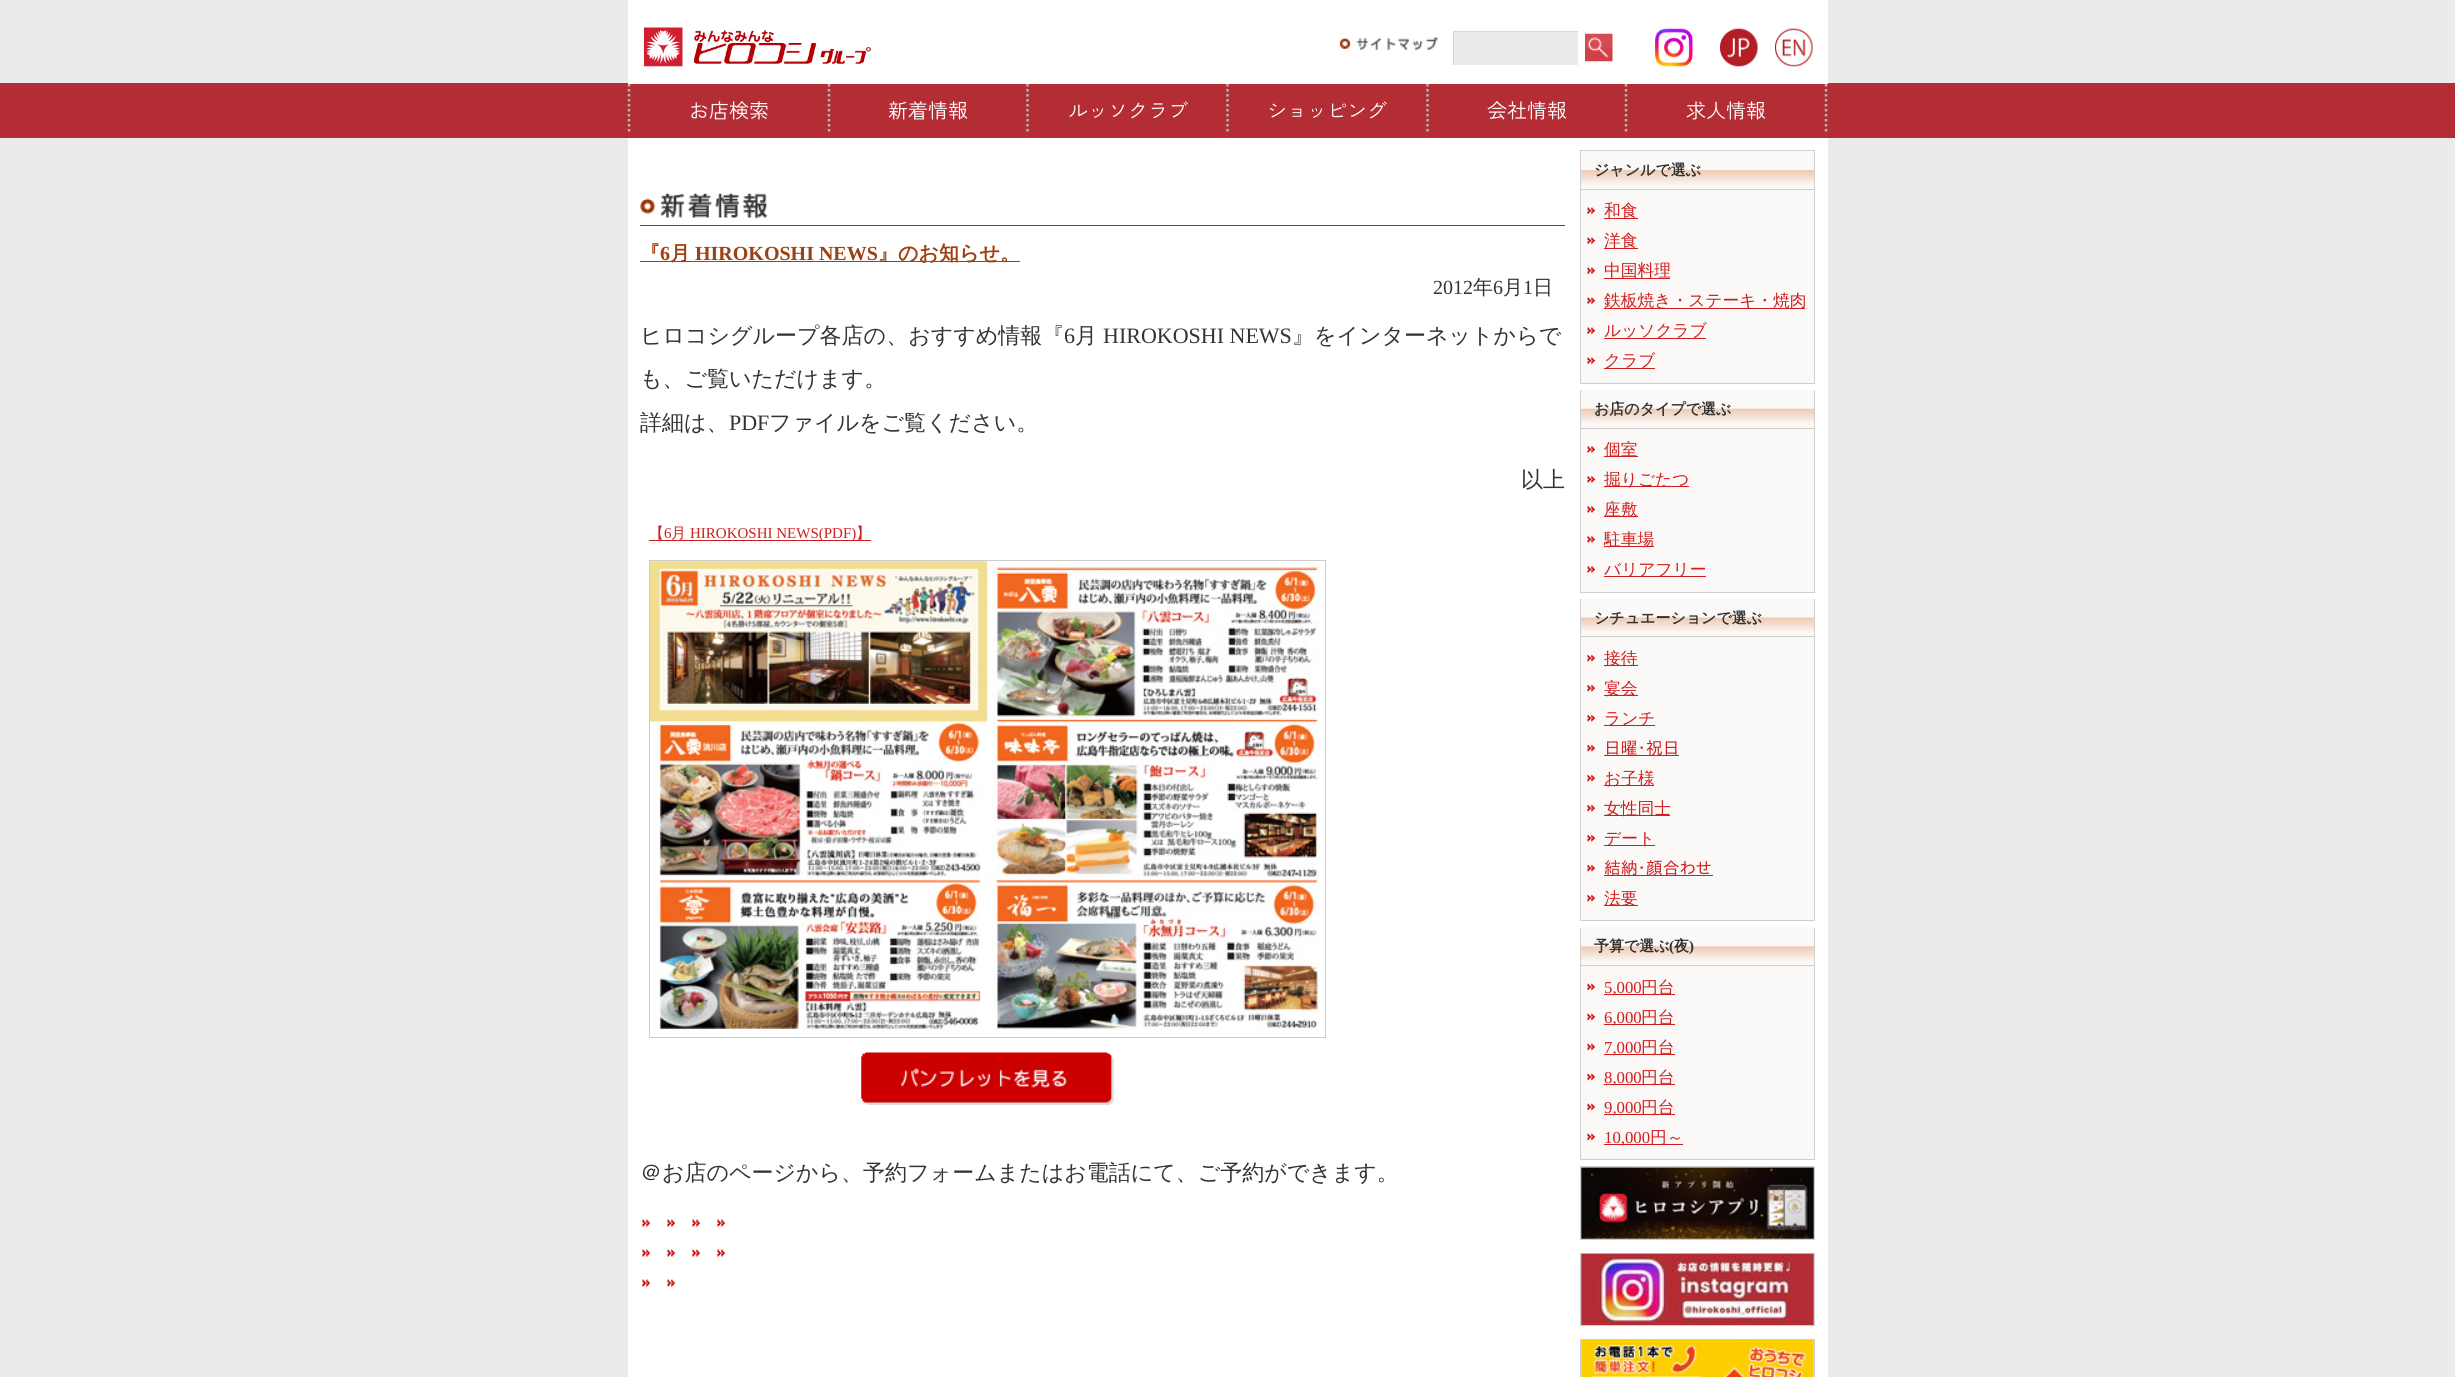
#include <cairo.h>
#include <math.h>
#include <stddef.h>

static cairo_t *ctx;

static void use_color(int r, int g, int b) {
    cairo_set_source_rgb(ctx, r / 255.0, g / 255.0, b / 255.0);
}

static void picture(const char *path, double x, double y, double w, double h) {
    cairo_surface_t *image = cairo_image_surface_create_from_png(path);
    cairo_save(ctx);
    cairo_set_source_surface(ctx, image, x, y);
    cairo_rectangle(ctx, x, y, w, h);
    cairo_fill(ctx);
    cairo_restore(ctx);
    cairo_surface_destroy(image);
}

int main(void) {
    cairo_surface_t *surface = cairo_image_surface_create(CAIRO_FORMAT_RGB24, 2455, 1377);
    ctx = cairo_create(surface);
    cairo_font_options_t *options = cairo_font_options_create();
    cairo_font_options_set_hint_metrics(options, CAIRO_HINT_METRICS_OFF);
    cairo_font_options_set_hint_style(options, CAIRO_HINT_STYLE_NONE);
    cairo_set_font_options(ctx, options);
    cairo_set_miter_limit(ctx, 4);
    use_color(235, 235, 235);
    cairo_paint(ctx);
    use_color(180, 45, 53);
    cairo_rectangle(ctx, 0, 83, 2455, 55);
    cairo_fill(ctx);
    use_color(255, 255, 255);
    cairo_rectangle(ctx, 628, 0, 1200, 84);
    cairo_fill(ctx);
    picture("img1.png", 643, 27, 229, 40);
    picture("img2.png", 1339, 37, 99, 13);
    use_color(235, 235, 235);
    cairo_rectangle(ctx, 1454, 32, 124, 33);
    cairo_fill(ctx);
    use_color(215, 215, 215);
    cairo_rectangle(ctx, 1453, 31, 125, 1);
    cairo_fill(ctx);
    cairo_rectangle(ctx, 1453, 31, 1, 34);
    cairo_fill(ctx);
    picture("img3.png", 1585, 33, 28, 29);
    picture("img4.png", 1655, 28, 38, 39);
    picture("img5.png", 1720, 28, 38, 39);
    picture("img6.png", 1775, 28, 38, 39);
    cairo_new_path(ctx);
    cairo_move_to(ctx, 629, 84);
    cairo_line_to(ctx, 629, 134);
    use_color(179, 179, 179);
    cairo_set_line_width(ctx, 2.5);
    cairo_set_dash(ctx, (double[]){2.5, 2.5}, 2, 0);
    cairo_stroke(ctx);
    cairo_select_font_face(ctx, "Zen Kaku Gothic New", CAIRO_FONT_SLANT_NORMAL, CAIRO_FONT_WEIGHT_NORMAL);
    cairo_set_font_size(ctx, 20);
    use_color(255, 255, 255);
    cairo_move_to(ctx, 689, 118);
    cairo_show_text(ctx, "お店検索");
    cairo_new_path(ctx);
    cairo_move_to(ctx, 829, 84);
    cairo_line_to(ctx, 829, 134);
    use_color(179, 179, 179);
    cairo_stroke(ctx);
    use_color(255, 255, 255);
    cairo_move_to(ctx, 888, 118);
    cairo_show_text(ctx, "新着情報");
    cairo_new_path(ctx);
    cairo_move_to(ctx, 1027.5, 84);
    cairo_line_to(ctx, 1027.5, 134);
    use_color(179, 179, 179);
    cairo_stroke(ctx);
    use_color(255, 255, 255);
    cairo_move_to(ctx, 1068, 118);
    cairo_show_text(ctx, "ルッソクラブ");
    cairo_new_path(ctx);
    cairo_move_to(ctx, 1227.5, 84);
    cairo_line_to(ctx, 1227.5, 134);
    use_color(179, 179, 179);
    cairo_stroke(ctx);
    use_color(255, 255, 255);
    cairo_move_to(ctx, 1267, 118);
    cairo_show_text(ctx, "ショッピング");
    cairo_new_path(ctx);
    cairo_move_to(ctx, 1427.5, 84);
    cairo_line_to(ctx, 1427.5, 134);
    use_color(179, 179, 179);
    cairo_stroke(ctx);
    use_color(255, 255, 255);
    cairo_move_to(ctx, 1487, 118);
    cairo_show_text(ctx, "会社情報");
    cairo_new_path(ctx);
    cairo_move_to(ctx, 1826, 84);
    cairo_line_to(ctx, 1826, 134);
    use_color(179, 179, 179);
    cairo_stroke(ctx);
    cairo_new_path(ctx);
    cairo_move_to(ctx, 1626, 84);
    cairo_line_to(ctx, 1626, 134);
    cairo_stroke(ctx);
    use_color(255, 255, 255);
    cairo_move_to(ctx, 1686, 118);
    cairo_show_text(ctx, "求人情報");
    cairo_rectangle(ctx, 628, 138, 1200, 1239);
    cairo_fill(ctx);
    use_color(108, 62, 62);
    cairo_rectangle(ctx, 640, 225, 925, 1);
    cairo_fill(ctx);
    picture("img7.png", 640, 193, 128, 26);
    cairo_select_font_face(ctx, "WenQuanYi Zen Hei", CAIRO_FONT_SLANT_NORMAL, CAIRO_FONT_WEIGHT_BOLD);
    use_color(159, 64, 16);
    cairo_move_to(ctx, 640, 260);
    cairo_show_text(ctx, "『");
    cairo_select_font_face(ctx, "Liberation Serif", CAIRO_FONT_SLANT_NORMAL, CAIRO_FONT_WEIGHT_BOLD);
    cairo_move_to(ctx, 660, 260);
    cairo_show_text(ctx, "6");
    cairo_rectangle(ctx, 640, 261, 380, 1);
    cairo_fill(ctx);
    cairo_select_font_face(ctx, "WenQuanYi Zen Hei", CAIRO_FONT_SLANT_NORMAL, CAIRO_FONT_WEIGHT_BOLD);
    cairo_move_to(ctx, 670, 260);
    cairo_show_text(ctx, "月");
    cairo_select_font_face(ctx, "Liberation Serif", CAIRO_FONT_SLANT_NORMAL, CAIRO_FONT_WEIGHT_BOLD);
    cairo_move_to(ctx, 695, 260);
    cairo_show_text(ctx, "HIROKOSHI NEWS");
    cairo_select_font_face(ctx, "WenQuanYi Zen Hei", CAIRO_FONT_SLANT_NORMAL, CAIRO_FONT_WEIGHT_BOLD);
    cairo_move_to(ctx, 878, 260);
    cairo_show_text(ctx, "』のお知らせ。");
    cairo_select_font_face(ctx, "Liberation Serif", CAIRO_FONT_SLANT_NORMAL, CAIRO_FONT_WEIGHT_NORMAL);
    use_color(51, 51, 51);
    cairo_move_to(ctx, 1433, 294);
    cairo_show_text(ctx, "2012");
    cairo_select_font_face(ctx, "WenQuanYi Zen Hei Medium", CAIRO_FONT_SLANT_NORMAL, CAIRO_FONT_WEIGHT_NORMAL);
    cairo_move_to(ctx, 1473, 294);
    cairo_show_text(ctx, "年");
    cairo_select_font_face(ctx, "Liberation Serif", CAIRO_FONT_SLANT_NORMAL, CAIRO_FONT_WEIGHT_NORMAL);
    cairo_move_to(ctx, 1493, 294);
    cairo_show_text(ctx, "6");
    cairo_select_font_face(ctx, "WenQuanYi Zen Hei Medium", CAIRO_FONT_SLANT_NORMAL, CAIRO_FONT_WEIGHT_NORMAL);
    cairo_move_to(ctx, 1503, 294);
    cairo_show_text(ctx, "月");
    cairo_select_font_face(ctx, "Liberation Serif", CAIRO_FONT_SLANT_NORMAL, CAIRO_FONT_WEIGHT_NORMAL);
    cairo_move_to(ctx, 1523, 294);
    cairo_show_text(ctx, "1");
    cairo_select_font_face(ctx, "WenQuanYi Zen Hei Medium", CAIRO_FONT_SLANT_NORMAL, CAIRO_FONT_WEIGHT_NORMAL);
    cairo_move_to(ctx, 1533, 294);
    cairo_show_text(ctx, "日");
    cairo_set_font_size(ctx, 22);
    cairo_move_to(ctx, 640, 343);
    cairo_show_text(ctx, "ヒロコシグループ各店の、おすすめ情報『");
    cairo_select_font_face(ctx, "Liberation Serif", CAIRO_FONT_SLANT_NORMAL, CAIRO_FONT_WEIGHT_NORMAL);
    cairo_move_to(ctx, 1064, 343);
    cairo_show_text(ctx, "6");
    cairo_select_font_face(ctx, "WenQuanYi Zen Hei Medium", CAIRO_FONT_SLANT_NORMAL, CAIRO_FONT_WEIGHT_NORMAL);
    cairo_move_to(ctx, 1075, 343);
    cairo_show_text(ctx, "月");
    cairo_select_font_face(ctx, "Liberation Serif", CAIRO_FONT_SLANT_NORMAL, CAIRO_FONT_WEIGHT_NORMAL);
    cairo_move_to(ctx, 1103, 343);
    cairo_show_text(ctx, "HIROKOSHI NEWS");
    cairo_select_font_face(ctx, "WenQuanYi Zen Hei Medium", CAIRO_FONT_SLANT_NORMAL, CAIRO_FONT_WEIGHT_NORMAL);
    cairo_move_to(ctx, 1292, 343);
    cairo_show_text(ctx, "』をインターネットからで");
    cairo_move_to(ctx, 640, 386);
    cairo_show_text(ctx, "も、ご覧いただけます。");
    cairo_move_to(ctx, 640, 430);
    cairo_show_text(ctx, "詳細は、");
    cairo_select_font_face(ctx, "Liberation Serif", CAIRO_FONT_SLANT_NORMAL, CAIRO_FONT_WEIGHT_NORMAL);
    cairo_move_to(ctx, 729, 430);
    cairo_show_text(ctx, "PDF");
    cairo_select_font_face(ctx, "WenQuanYi Zen Hei Medium", CAIRO_FONT_SLANT_NORMAL, CAIRO_FONT_WEIGHT_NORMAL);
    cairo_move_to(ctx, 769, 430);
    cairo_show_text(ctx, "ファイルをご覧ください。");
    cairo_move_to(ctx, 1521, 487);
    cairo_show_text(ctx, "以上");
    cairo_set_font_size(ctx, 15);
    use_color(208, 30, 30);
    cairo_move_to(ctx, 649, 538);
    cairo_show_text(ctx, "【");
    cairo_select_font_face(ctx, "Liberation Serif", CAIRO_FONT_SLANT_NORMAL, CAIRO_FONT_WEIGHT_NORMAL);
    cairo_move_to(ctx, 664, 538);
    cairo_show_text(ctx, "6");
    cairo_select_font_face(ctx, "WenQuanYi Zen Hei Medium", CAIRO_FONT_SLANT_NORMAL, CAIRO_FONT_WEIGHT_NORMAL);
    cairo_move_to(ctx, 671, 538);
    cairo_show_text(ctx, "月");
    cairo_rectangle(ctx, 649, 540, 222, 1);
    cairo_fill(ctx);
    cairo_select_font_face(ctx, "Liberation Serif", CAIRO_FONT_SLANT_NORMAL, CAIRO_FONT_WEIGHT_NORMAL);
    cairo_move_to(ctx, 690, 538);
    cairo_show_text(ctx, "HIROKOSHI NEWS(PDF)");
    cairo_select_font_face(ctx, "WenQuanYi Zen Hei Medium", CAIRO_FONT_SLANT_NORMAL, CAIRO_FONT_WEIGHT_NORMAL);
    cairo_move_to(ctx, 856, 538);
    cairo_show_text(ctx, "】");
    cairo_rectangle(ctx, 649.5, 560.5, 676, 477);
    use_color(204, 204, 204);
    cairo_set_line_width(ctx, 1);
    cairo_set_dash(ctx, NULL, 0, 0);
    cairo_stroke(ctx);
    picture("img8.png", 650, 561, 670, 470);
    picture("img9.png", 861, 1052, 253, 53);
    cairo_set_font_size(ctx, 22);
    use_color(51, 51, 51);
    cairo_move_to(ctx, 640, 1180);
    cairo_show_text(ctx, "＠お店のページから、予約フォームまたはお電話にて、ご予約ができます。");
    picture("img10.png", 642, 1219, 8, 8);
    picture("img10.png", 667, 1219, 8, 8);
    picture("img10.png", 692, 1219, 8, 8);
    picture("img10.png", 717, 1219, 8, 8);
    picture("img10.png", 642, 1249, 8, 8);
    picture("img10.png", 667, 1249, 8, 8);
    picture("img10.png", 692, 1249, 8, 8);
    picture("img10.png", 717, 1249, 8, 8);
    picture("img10.png", 642, 1279, 8, 8);
    picture("img10.png", 667, 1279, 8, 8);
    picture("img11.png", 1581, 151, 233, 38);
    use_color(206, 206, 206);
    cairo_rectangle(ctx, 1580, 150, 235, 1);
    cairo_fill(ctx);
    cairo_rectangle(ctx, 1814, 150, 1, 39);
    cairo_fill(ctx);
    cairo_rectangle(ctx, 1580, 150, 1, 39);
    cairo_fill(ctx);
    cairo_select_font_face(ctx, "WenQuanYi Zen Hei", CAIRO_FONT_SLANT_NORMAL, CAIRO_FONT_WEIGHT_BOLD);
    cairo_set_font_size(ctx, 15);
    use_color(51, 51, 51);
    cairo_move_to(ctx, 1594, 175);
    cairo_show_text(ctx, "ジャンルで選ぶ");
    use_color(251, 249, 247);
    cairo_rectangle(ctx, 1580.5, 189.5, 234, 194);
    cairo_fill_preserve(ctx);
    use_color(206, 206, 206);
    cairo_stroke(ctx);
    picture("img12.png", 1587, 207, 8, 7);
    use_color(208, 30, 30);
    cairo_rectangle(ctx, 1604, 218, 34, 1);
    cairo_fill(ctx);
    cairo_select_font_face(ctx, "WenQuanYi Zen Hei Medium", CAIRO_FONT_SLANT_NORMAL, CAIRO_FONT_WEIGHT_NORMAL);
    cairo_set_font_size(ctx, 16.75);
    cairo_move_to(ctx, 1604, 216);
    cairo_show_text(ctx, "和食");
    picture("img12.png", 1587, 237, 8, 7);
    cairo_rectangle(ctx, 1604, 248, 34, 1);
    cairo_fill(ctx);
    cairo_move_to(ctx, 1604, 246);
    cairo_show_text(ctx, "洋食");
    picture("img12.png", 1587, 267, 8, 7);
    cairo_rectangle(ctx, 1604, 278, 66, 1);
    cairo_fill(ctx);
    cairo_move_to(ctx, 1604, 276);
    cairo_show_text(ctx, "中国料理");
    picture("img13.png", 1587, 297, 8, 7);
    cairo_rectangle(ctx, 1604, 308, 201, 1);
    cairo_fill(ctx);
    cairo_move_to(ctx, 1604, 306);
    cairo_show_text(ctx, "鉄板焼き・ステーキ・焼肉");
    picture("img12.png", 1587, 327, 8, 7);
    cairo_rectangle(ctx, 1604, 338, 102, 1);
    cairo_fill(ctx);
    cairo_move_to(ctx, 1604, 336);
    cairo_show_text(ctx, "ルッソクラブ");
    picture("img12.png", 1587, 357, 8, 7);
    cairo_rectangle(ctx, 1604, 368, 51, 1);
    cairo_fill(ctx);
    cairo_move_to(ctx, 1604, 366);
    cairo_show_text(ctx, "クラブ");
    use_color(241, 241, 241);
    cairo_rectangle(ctx, 1581, 427, 233, 1);
    cairo_fill(ctx);
    picture("img14.png", 1581, 390, 233, 38);
    use_color(206, 206, 206);
    cairo_rectangle(ctx, 1814, 390, 1, 38);
    cairo_fill(ctx);
    cairo_rectangle(ctx, 1580, 390, 1, 38);
    cairo_fill(ctx);
    cairo_select_font_face(ctx, "WenQuanYi Zen Hei", CAIRO_FONT_SLANT_NORMAL, CAIRO_FONT_WEIGHT_BOLD);
    cairo_set_font_size(ctx, 15);
    use_color(51, 51, 51);
    cairo_move_to(ctx, 1594, 414);
    cairo_show_text(ctx, "お店のタイプで選ぶ");
    use_color(251, 249, 247);
    cairo_rectangle(ctx, 1580.5, 428.5, 234, 164);
    cairo_fill_preserve(ctx);
    use_color(206, 206, 206);
    cairo_stroke(ctx);
    picture("img15.png", 1587, 446, 8, 7);
    use_color(208, 30, 30);
    cairo_rectangle(ctx, 1604, 456, 34, 1);
    cairo_fill(ctx);
    cairo_select_font_face(ctx, "WenQuanYi Zen Hei Medium", CAIRO_FONT_SLANT_NORMAL, CAIRO_FONT_WEIGHT_NORMAL);
    cairo_set_font_size(ctx, 16.75);
    cairo_move_to(ctx, 1604, 455);
    cairo_show_text(ctx, "個室");
    picture("img15.png", 1587, 476, 8, 7);
    cairo_rectangle(ctx, 1604, 486, 85, 1);
    cairo_fill(ctx);
    cairo_move_to(ctx, 1604, 485);
    cairo_show_text(ctx, "掘りごたつ");
    picture("img15.png", 1587, 506, 8, 7);
    cairo_rectangle(ctx, 1604, 516, 34, 1);
    cairo_fill(ctx);
    cairo_move_to(ctx, 1604, 515);
    cairo_show_text(ctx, "座敷");
    picture("img15.png", 1587, 536, 8, 7);
    cairo_rectangle(ctx, 1604, 546, 50, 1);
    cairo_fill(ctx);
    cairo_move_to(ctx, 1604, 545);
    cairo_show_text(ctx, "駐車場");
    picture("img15.png", 1587, 566, 8, 7);
    cairo_rectangle(ctx, 1604, 576, 102, 1);
    cairo_fill(ctx);
    cairo_move_to(ctx, 1604, 575);
    cairo_show_text(ctx, "バリアフリー");
    picture("img16.png", 1581, 599, 233, 37);
    use_color(206, 206, 206);
    cairo_rectangle(ctx, 1814, 599, 1, 37);
    cairo_fill(ctx);
    cairo_rectangle(ctx, 1580, 599, 1, 37);
    cairo_fill(ctx);
    cairo_select_font_face(ctx, "WenQuanYi Zen Hei", CAIRO_FONT_SLANT_NORMAL, CAIRO_FONT_WEIGHT_BOLD);
    cairo_set_font_size(ctx, 15);
    use_color(51, 51, 51);
    cairo_move_to(ctx, 1594, 623);
    cairo_show_text(ctx, "シチュエーションで選ぶ");
    use_color(251, 249, 247);
    cairo_rectangle(ctx, 1580.5, 636.5, 234, 284);
    cairo_fill_preserve(ctx);
    use_color(206, 206, 206);
    cairo_stroke(ctx);
    picture("img17.png", 1587, 654, 8, 8);
    use_color(208, 30, 30);
    cairo_rectangle(ctx, 1604, 665, 34, 1);
    cairo_fill(ctx);
    cairo_select_font_face(ctx, "WenQuanYi Zen Hei Medium", CAIRO_FONT_SLANT_NORMAL, CAIRO_FONT_WEIGHT_NORMAL);
    cairo_set_font_size(ctx, 16.75);
    cairo_move_to(ctx, 1604, 664);
    cairo_show_text(ctx, "接待");
    picture("img17.png", 1587, 684, 8, 8);
    cairo_rectangle(ctx, 1604, 695, 34, 1);
    cairo_fill(ctx);
    cairo_move_to(ctx, 1604, 694);
    cairo_show_text(ctx, "宴会");
    picture("img17.png", 1587, 714, 8, 8);
    cairo_rectangle(ctx, 1604, 725, 51, 1);
    cairo_fill(ctx);
    cairo_move_to(ctx, 1604, 724);
    cairo_show_text(ctx, "ランチ");
    picture("img17.png", 1587, 744, 8, 8);
    cairo_rectangle(ctx, 1604, 755, 75, 1);
    cairo_fill(ctx);
    cairo_select_font_face(ctx, "IPAPGothic", CAIRO_FONT_SLANT_NORMAL, CAIRO_FONT_WEIGHT_NORMAL);
    cairo_move_to(ctx, 1604, 754);
    cairo_show_text(ctx, "日曜･祝日");
    picture("img17.png", 1587, 774, 8, 8);
    cairo_rectangle(ctx, 1604, 785, 50, 1);
    cairo_fill(ctx);
    cairo_select_font_face(ctx, "WenQuanYi Zen Hei Medium", CAIRO_FONT_SLANT_NORMAL, CAIRO_FONT_WEIGHT_NORMAL);
    cairo_move_to(ctx, 1604, 784);
    cairo_show_text(ctx, "お子様");
    picture("img17.png", 1587, 804, 8, 8);
    cairo_rectangle(ctx, 1604, 815, 66, 1);
    cairo_fill(ctx);
    cairo_move_to(ctx, 1604, 814);
    cairo_show_text(ctx, "女性同士");
    picture("img17.png", 1587, 834, 8, 8);
    cairo_rectangle(ctx, 1604, 845, 51, 1);
    cairo_fill(ctx);
    cairo_move_to(ctx, 1604, 844);
    cairo_show_text(ctx, "デート");
    picture("img17.png", 1587, 864, 8, 8);
    cairo_rectangle(ctx, 1604, 875, 109, 1);
    cairo_fill(ctx);
    cairo_select_font_face(ctx, "IPAPGothic", CAIRO_FONT_SLANT_NORMAL, CAIRO_FONT_WEIGHT_NORMAL);
    cairo_move_to(ctx, 1604, 874);
    cairo_show_text(ctx, "結納･顔合わせ");
    picture("img17.png", 1587, 894, 8, 8);
    cairo_rectangle(ctx, 1604, 905, 34, 1);
    cairo_fill(ctx);
    cairo_select_font_face(ctx, "WenQuanYi Zen Hei Medium", CAIRO_FONT_SLANT_NORMAL, CAIRO_FONT_WEIGHT_NORMAL);
    cairo_move_to(ctx, 1604, 904);
    cairo_show_text(ctx, "法要");
    picture("img18.png", 1580, 927, 235, 38);
    use_color(206, 206, 206);
    cairo_rectangle(ctx, 1814, 928, 1, 37);
    cairo_fill(ctx);
    cairo_rectangle(ctx, 1580, 928, 1, 37);
    cairo_fill(ctx);
    cairo_select_font_face(ctx, "WenQuanYi Zen Hei", CAIRO_FONT_SLANT_NORMAL, CAIRO_FONT_WEIGHT_BOLD);
    cairo_set_font_size(ctx, 15);
    use_color(51, 51, 51);
    cairo_move_to(ctx, 1594, 951);
    cairo_show_text(ctx, "予算で選ぶ");
    cairo_select_font_face(ctx, "Liberation Serif", CAIRO_FONT_SLANT_NORMAL, CAIRO_FONT_WEIGHT_BOLD);
    cairo_move_to(ctx, 1669, 951);
    cairo_show_text(ctx, "(");
    cairo_select_font_face(ctx, "WenQuanYi Zen Hei", CAIRO_FONT_SLANT_NORMAL, CAIRO_FONT_WEIGHT_BOLD);
    cairo_move_to(ctx, 1674, 951);
    cairo_show_text(ctx, "夜");
    cairo_select_font_face(ctx, "Liberation Serif", CAIRO_FONT_SLANT_NORMAL, CAIRO_FONT_WEIGHT_BOLD);
    cairo_move_to(ctx, 1689, 951);
    cairo_show_text(ctx, ")");
    use_color(251, 249, 247);
    cairo_rectangle(ctx, 1580.5, 965.5, 234, 194);
    cairo_fill_preserve(ctx);
    use_color(206, 206, 206);
    cairo_stroke(ctx);
    picture("img19.png", 1587, 983, 8, 8);
    use_color(208, 30, 30);
    cairo_rectangle(ctx, 1604, 994, 71, 1);
    cairo_fill(ctx);
    cairo_select_font_face(ctx, "Liberation Serif", CAIRO_FONT_SLANT_NORMAL, CAIRO_FONT_WEIGHT_NORMAL);
    cairo_set_font_size(ctx, 16.75);
    cairo_move_to(ctx, 1604, 993);
    cairo_show_text(ctx, "5,000");
    cairo_select_font_face(ctx, "WenQuanYi Zen Hei Medium", CAIRO_FONT_SLANT_NORMAL, CAIRO_FONT_WEIGHT_NORMAL);
    cairo_move_to(ctx, 1641, 993);
    cairo_show_text(ctx, "円台");
    picture("img19.png", 1587, 1013, 8, 8);
    cairo_rectangle(ctx, 1604, 1024, 71, 1);
    cairo_fill(ctx);
    cairo_select_font_face(ctx, "Liberation Serif", CAIRO_FONT_SLANT_NORMAL, CAIRO_FONT_WEIGHT_NORMAL);
    cairo_move_to(ctx, 1604, 1023);
    cairo_show_text(ctx, "6,000");
    cairo_select_font_face(ctx, "WenQuanYi Zen Hei Medium", CAIRO_FONT_SLANT_NORMAL, CAIRO_FONT_WEIGHT_NORMAL);
    cairo_move_to(ctx, 1641, 1023);
    cairo_show_text(ctx, "円台");
    picture("img19.png", 1587, 1043, 8, 8);
    cairo_rectangle(ctx, 1604, 1054, 71, 1);
    cairo_fill(ctx);
    cairo_select_font_face(ctx, "Liberation Serif", CAIRO_FONT_SLANT_NORMAL, CAIRO_FONT_WEIGHT_NORMAL);
    cairo_move_to(ctx, 1604, 1053);
    cairo_show_text(ctx, "7,000");
    cairo_select_font_face(ctx, "WenQuanYi Zen Hei Medium", CAIRO_FONT_SLANT_NORMAL, CAIRO_FONT_WEIGHT_NORMAL);
    cairo_move_to(ctx, 1641, 1053);
    cairo_show_text(ctx, "円台");
    picture("img19.png", 1587, 1073, 8, 8);
    cairo_rectangle(ctx, 1604, 1084, 71, 1);
    cairo_fill(ctx);
    cairo_select_font_face(ctx, "Liberation Serif", CAIRO_FONT_SLANT_NORMAL, CAIRO_FONT_WEIGHT_NORMAL);
    cairo_move_to(ctx, 1604, 1083);
    cairo_show_text(ctx, "8,000");
    cairo_select_font_face(ctx, "WenQuanYi Zen Hei Medium", CAIRO_FONT_SLANT_NORMAL, CAIRO_FONT_WEIGHT_NORMAL);
    cairo_move_to(ctx, 1641, 1083);
    cairo_show_text(ctx, "円台");
    picture("img19.png", 1587, 1103, 8, 8);
    cairo_rectangle(ctx, 1604, 1114, 71, 1);
    cairo_fill(ctx);
    cairo_select_font_face(ctx, "Liberation Serif", CAIRO_FONT_SLANT_NORMAL, CAIRO_FONT_WEIGHT_NORMAL);
    cairo_move_to(ctx, 1604, 1113);
    cairo_show_text(ctx, "9,000");
    cairo_select_font_face(ctx, "WenQuanYi Zen Hei Medium", CAIRO_FONT_SLANT_NORMAL, CAIRO_FONT_WEIGHT_NORMAL);
    cairo_move_to(ctx, 1641, 1113);
    cairo_show_text(ctx, "円台");
    picture("img19.png", 1587, 1133, 8, 8);
    cairo_rectangle(ctx, 1604, 1144, 79, 1);
    cairo_fill(ctx);
    cairo_select_font_face(ctx, "Liberation Serif", CAIRO_FONT_SLANT_NORMAL, CAIRO_FONT_WEIGHT_NORMAL);
    cairo_move_to(ctx, 1604, 1143);
    cairo_show_text(ctx, "10,000");
    cairo_select_font_face(ctx, "WenQuanYi Zen Hei Medium", CAIRO_FONT_SLANT_NORMAL, CAIRO_FONT_WEIGHT_NORMAL);
    cairo_move_to(ctx, 1650, 1143);
    cairo_show_text(ctx, "円～");
    cairo_rectangle(ctx, 1580.5, 1166.5, 234, 73);
    use_color(206, 206, 206);
    cairo_stroke(ctx);
    picture("img20.png", 1581, 1167, 233, 72);
    cairo_rectangle(ctx, 1580.5, 1253.5, 234, 72);
    cairo_stroke(ctx);
    picture("img21.png", 1581, 1253, 233, 72);
    cairo_rectangle(ctx, 1580.5, 1339.5, 234, 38);
    cairo_stroke(ctx);
    picture("img22.png", 1581, 1340, 233, 37);
    cairo_surface_write_to_png(surface, "result.png");
    cairo_font_options_destroy(options);
    cairo_destroy(ctx);
    cairo_surface_destroy(surface);
    return 0;
}
